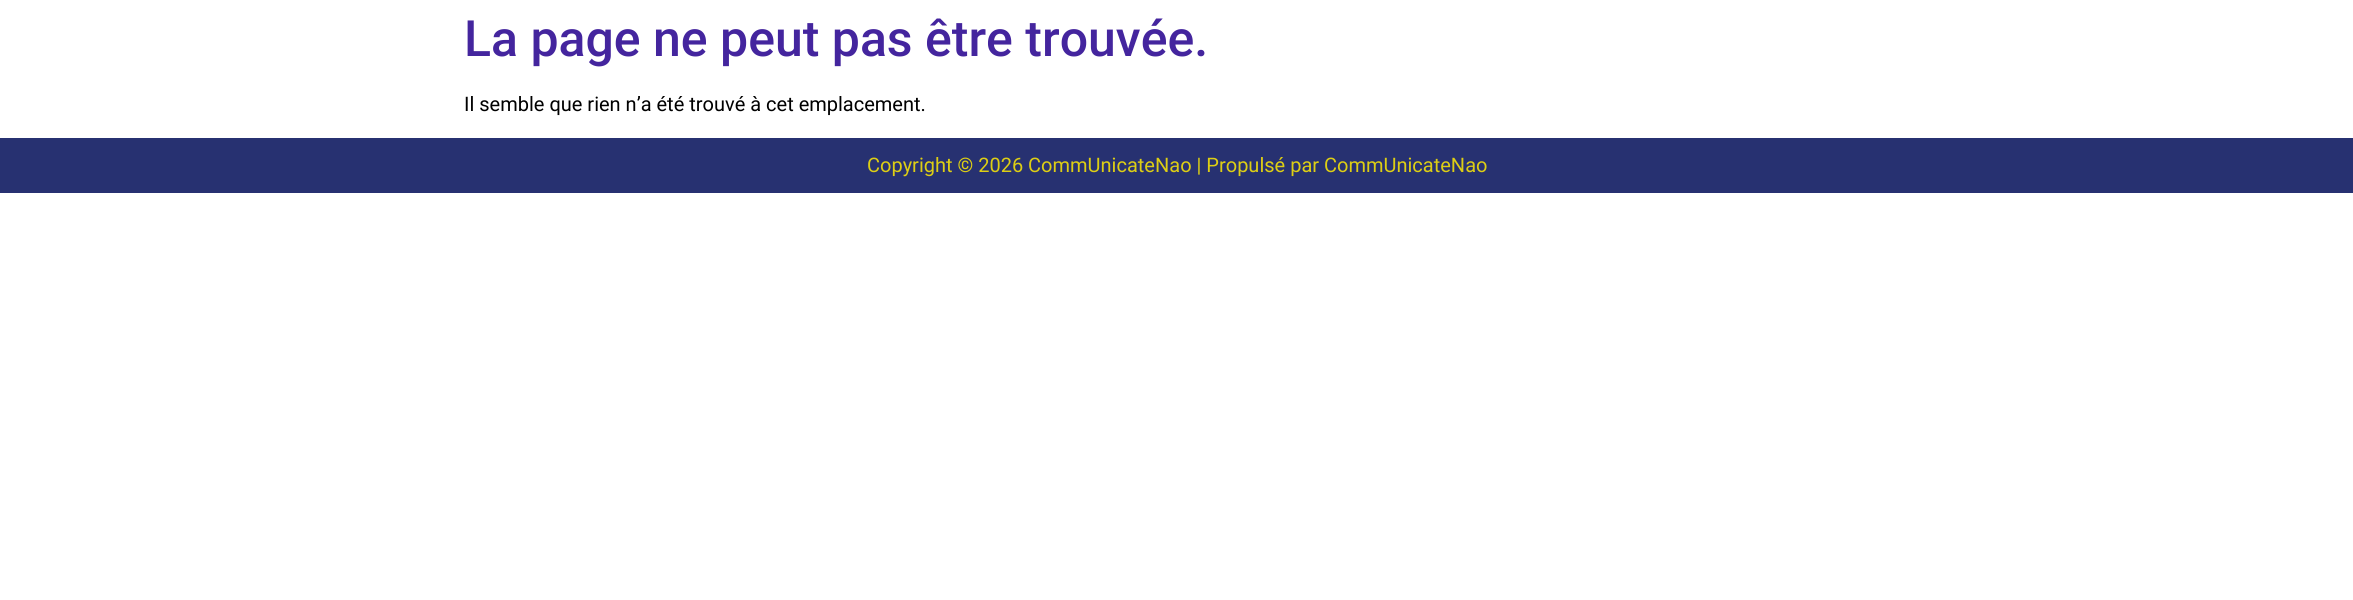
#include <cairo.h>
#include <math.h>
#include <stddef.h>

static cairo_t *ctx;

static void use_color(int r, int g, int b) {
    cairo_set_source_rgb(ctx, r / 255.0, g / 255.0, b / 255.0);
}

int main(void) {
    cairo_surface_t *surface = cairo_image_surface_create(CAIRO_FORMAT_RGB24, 2353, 600);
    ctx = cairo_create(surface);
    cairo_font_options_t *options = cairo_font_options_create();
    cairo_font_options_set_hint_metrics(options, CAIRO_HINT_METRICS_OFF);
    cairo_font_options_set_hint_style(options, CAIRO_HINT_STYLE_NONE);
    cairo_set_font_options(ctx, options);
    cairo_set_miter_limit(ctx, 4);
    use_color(255, 255, 255);
    cairo_paint(ctx);
    cairo_select_font_face(ctx, "Roboto Medium", CAIRO_FONT_SLANT_NORMAL, CAIRO_FONT_WEIGHT_NORMAL);
    cairo_set_font_size(ctx, 50);
    use_color(68, 37, 158);
    cairo_move_to(ctx, 464, 56);
    cairo_show_text(ctx, "La page ne peut pas être trouvée.");
    cairo_select_font_face(ctx, "Roboto", CAIRO_FONT_SLANT_NORMAL, CAIRO_FONT_WEIGHT_NORMAL);
    cairo_set_font_size(ctx, 20);
    use_color(0, 0, 0);
    cairo_move_to(ctx, 464, 111);
    cairo_show_text(ctx, "Il semble que rien n’a été trouvé à cet emplacement.");
    use_color(39, 49, 113);
    cairo_rectangle(ctx, 0, 138, 2353, 55);
    cairo_fill(ctx);
    use_color(221, 206, 20);
    cairo_move_to(ctx, 867, 172);
    cairo_show_text(ctx, "Copyright © 2026 CommUnicateNao | Propulsé par CommUnicateNao");
    cairo_surface_write_to_png(surface, "result.png");
    cairo_font_options_destroy(options);
    cairo_destroy(ctx);
    cairo_surface_destroy(surface);
    return 0;
}
